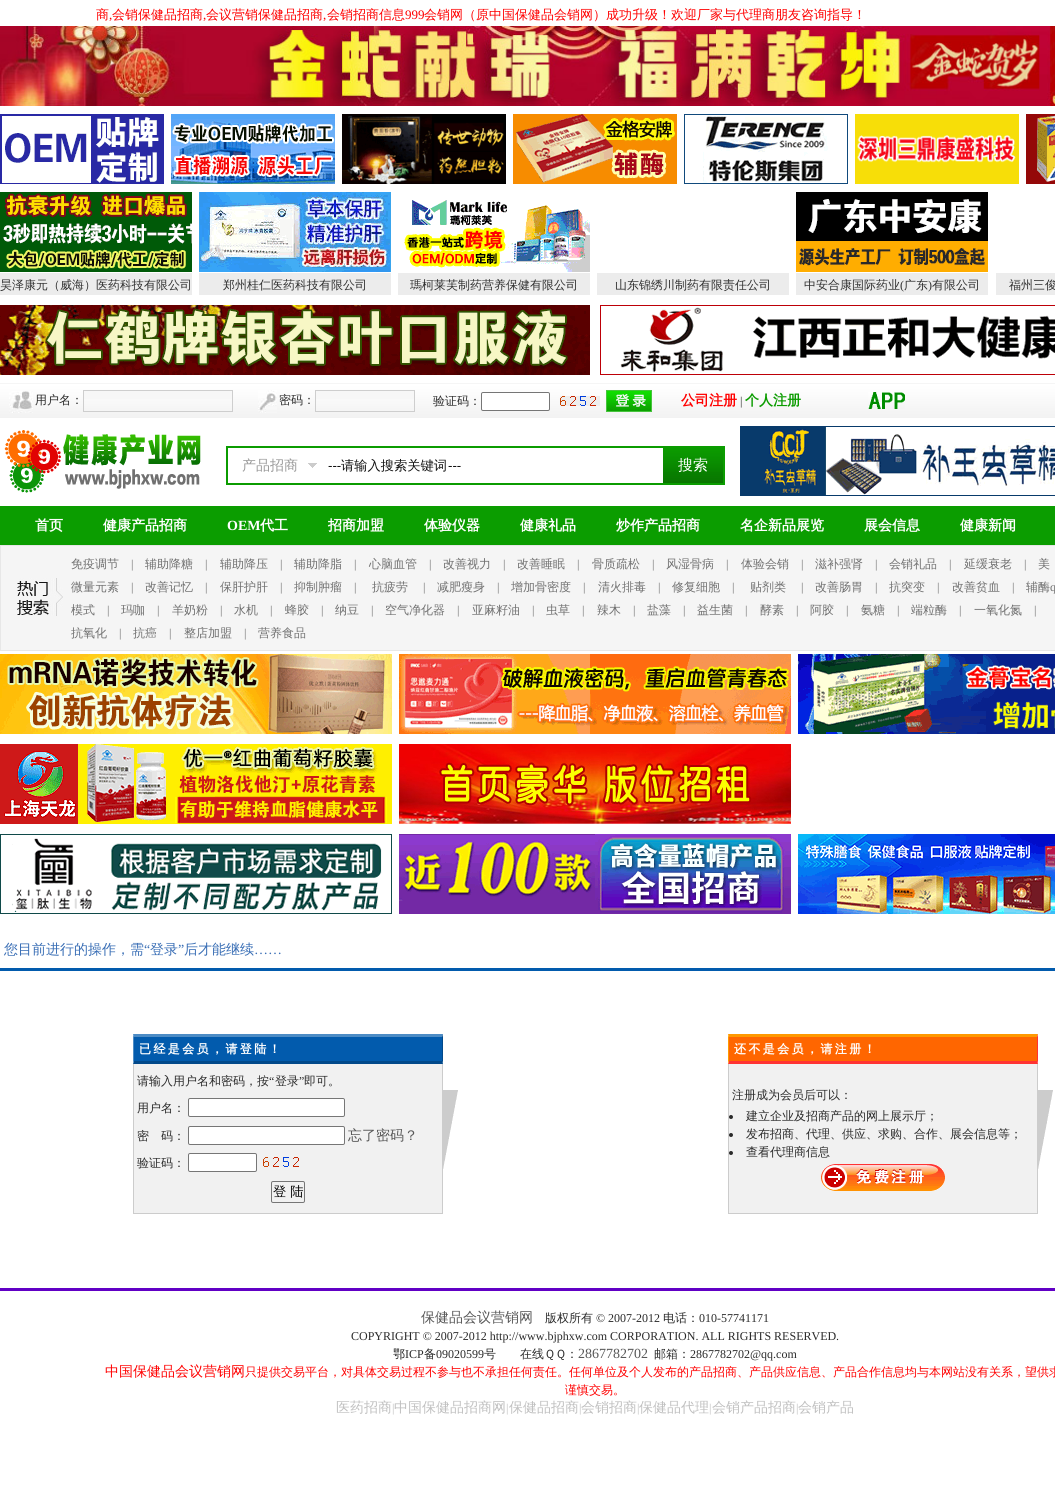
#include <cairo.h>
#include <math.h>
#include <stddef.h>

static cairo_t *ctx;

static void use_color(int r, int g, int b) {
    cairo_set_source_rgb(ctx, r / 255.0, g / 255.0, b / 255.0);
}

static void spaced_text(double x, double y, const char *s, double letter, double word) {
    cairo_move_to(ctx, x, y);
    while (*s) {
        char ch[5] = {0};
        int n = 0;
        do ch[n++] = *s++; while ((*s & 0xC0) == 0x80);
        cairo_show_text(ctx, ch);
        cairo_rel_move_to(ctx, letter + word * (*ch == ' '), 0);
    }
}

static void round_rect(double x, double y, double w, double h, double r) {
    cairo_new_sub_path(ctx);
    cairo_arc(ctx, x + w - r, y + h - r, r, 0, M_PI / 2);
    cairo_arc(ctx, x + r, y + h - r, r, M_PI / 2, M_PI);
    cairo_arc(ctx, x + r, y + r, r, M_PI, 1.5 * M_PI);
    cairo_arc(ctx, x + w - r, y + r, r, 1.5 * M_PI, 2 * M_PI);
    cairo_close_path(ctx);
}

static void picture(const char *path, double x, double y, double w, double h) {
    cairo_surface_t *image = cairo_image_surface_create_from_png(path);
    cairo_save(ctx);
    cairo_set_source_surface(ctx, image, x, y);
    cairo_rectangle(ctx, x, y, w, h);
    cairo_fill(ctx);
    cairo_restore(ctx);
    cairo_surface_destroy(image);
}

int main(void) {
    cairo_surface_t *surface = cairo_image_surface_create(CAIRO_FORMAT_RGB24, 1055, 1503);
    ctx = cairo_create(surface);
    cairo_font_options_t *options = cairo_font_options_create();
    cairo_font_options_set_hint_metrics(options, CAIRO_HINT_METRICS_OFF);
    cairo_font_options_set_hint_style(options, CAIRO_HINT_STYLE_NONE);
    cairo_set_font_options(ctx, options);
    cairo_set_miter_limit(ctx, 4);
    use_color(255, 255, 255);
    cairo_paint(ctx);
    cairo_select_font_face(ctx, "WenQuanYi Zen Hei Medium", CAIRO_FONT_SLANT_NORMAL, CAIRO_FONT_WEIGHT_NORMAL);
    cairo_set_font_size(ctx, 13);
    use_color(255, 0, 0);
    cairo_move_to(ctx, 96, 19);
    cairo_show_text(ctx, "商");
    cairo_select_font_face(ctx, "Liberation Serif", CAIRO_FONT_SLANT_NORMAL, CAIRO_FONT_WEIGHT_NORMAL);
    cairo_move_to(ctx, 109, 19);
    cairo_show_text(ctx, ",");
    cairo_select_font_face(ctx, "WenQuanYi Zen Hei Medium", CAIRO_FONT_SLANT_NORMAL, CAIRO_FONT_WEIGHT_NORMAL);
    cairo_move_to(ctx, 112, 19);
    cairo_show_text(ctx, "会销保健品招商");
    cairo_select_font_face(ctx, "Liberation Serif", CAIRO_FONT_SLANT_NORMAL, CAIRO_FONT_WEIGHT_NORMAL);
    cairo_move_to(ctx, 203, 19);
    cairo_show_text(ctx, ",");
    cairo_select_font_face(ctx, "WenQuanYi Zen Hei Medium", CAIRO_FONT_SLANT_NORMAL, CAIRO_FONT_WEIGHT_NORMAL);
    cairo_move_to(ctx, 206, 19);
    cairo_show_text(ctx, "会议营销保健品招商");
    cairo_select_font_face(ctx, "Liberation Serif", CAIRO_FONT_SLANT_NORMAL, CAIRO_FONT_WEIGHT_NORMAL);
    cairo_move_to(ctx, 323, 19);
    cairo_show_text(ctx, ",");
    cairo_select_font_face(ctx, "WenQuanYi Zen Hei Medium", CAIRO_FONT_SLANT_NORMAL, CAIRO_FONT_WEIGHT_NORMAL);
    cairo_move_to(ctx, 327, 19);
    cairo_show_text(ctx, "会销招商信息");
    cairo_select_font_face(ctx, "Liberation Serif", CAIRO_FONT_SLANT_NORMAL, CAIRO_FONT_WEIGHT_NORMAL);
    cairo_move_to(ctx, 405, 19);
    cairo_show_text(ctx, "999");
    cairo_select_font_face(ctx, "WenQuanYi Zen Hei Medium", CAIRO_FONT_SLANT_NORMAL, CAIRO_FONT_WEIGHT_NORMAL);
    cairo_move_to(ctx, 424, 19);
    cairo_show_text(ctx, "会销网（原中国保健品会销网）成功升级！欢迎厂家与代理商朋友咨询指导！");
    picture("img1.png", 0, 26, 1055, 80);
    picture("img2.png", 0, 114, 164, 70);
    picture("img3.png", 171, 114, 164, 70);
    picture("img4.png", 342, 114, 164, 70);
    picture("img5.png", 513, 114, 164, 70);
    picture("img6.png", 684, 114, 164, 70);
    picture("img7.png", 855, 114, 164, 70);
    picture("img8.png", 1026, 114, 29, 70);
    picture("img9.png", 0, 192, 192, 80);
    use_color(236, 236, 236);
    cairo_rectangle(ctx, 0, 273, 192, 22);
    cairo_fill(ctx);
    cairo_set_font_size(ctx, 12);
    use_color(48, 48, 48);
    cairo_move_to(ctx, 0, 289);
    cairo_show_text(ctx, "昊泽康元（威海）医药科技有限公司");
    picture("img10.png", 199, 192, 192, 80);
    use_color(236, 236, 236);
    cairo_rectangle(ctx, 199, 273, 192, 22);
    cairo_fill(ctx);
    use_color(48, 48, 48);
    cairo_move_to(ctx, 223, 289);
    cairo_show_text(ctx, "郑州桂仁医药科技有限公司");
    picture("img11.png", 404, 200, 186, 72);
    use_color(236, 236, 236);
    cairo_rectangle(ctx, 398, 273, 192, 22);
    cairo_fill(ctx);
    use_color(48, 48, 48);
    cairo_move_to(ctx, 410, 289);
    cairo_show_text(ctx, "瑪柯莱芙制药营养保健有限公司");
    use_color(236, 236, 236);
    cairo_rectangle(ctx, 597, 273, 192, 22);
    cairo_fill(ctx);
    use_color(48, 48, 48);
    cairo_move_to(ctx, 615, 289);
    cairo_show_text(ctx, "山东锦绣川制药有限责任公司");
    picture("img12.png", 796, 192, 192, 80);
    use_color(236, 236, 236);
    cairo_rectangle(ctx, 796, 273, 192, 22);
    cairo_fill(ctx);
    use_color(48, 48, 48);
    cairo_move_to(ctx, 804, 289);
    cairo_show_text(ctx, "中安合康国际药业");
    cairo_select_font_face(ctx, "Liberation Serif", CAIRO_FONT_SLANT_NORMAL, CAIRO_FONT_WEIGHT_NORMAL);
    cairo_move_to(ctx, 900, 289);
    cairo_show_text(ctx, "(");
    cairo_select_font_face(ctx, "WenQuanYi Zen Hei Medium", CAIRO_FONT_SLANT_NORMAL, CAIRO_FONT_WEIGHT_NORMAL);
    cairo_move_to(ctx, 904, 289);
    cairo_show_text(ctx, "广东");
    cairo_select_font_face(ctx, "Liberation Serif", CAIRO_FONT_SLANT_NORMAL, CAIRO_FONT_WEIGHT_NORMAL);
    cairo_move_to(ctx, 928, 289);
    cairo_show_text(ctx, ")");
    cairo_select_font_face(ctx, "WenQuanYi Zen Hei Medium", CAIRO_FONT_SLANT_NORMAL, CAIRO_FONT_WEIGHT_NORMAL);
    cairo_move_to(ctx, 932, 289);
    cairo_show_text(ctx, "有限公司");
    use_color(236, 236, 236);
    cairo_rectangle(ctx, 996, 273, 59, 22);
    cairo_fill(ctx);
    use_color(48, 48, 48);
    cairo_move_to(ctx, 1009, 289);
    cairo_show_text(ctx, "福州三俊");
    picture("img13.png", 0, 305, 590, 70);
    picture("img14.png", 600, 305, 455, 70);
    picture("img15.png", 0, 383, 1055, 35);
    picture("img16.png", 9, 391, 24, 22);
    use_color(42, 42, 42);
    cairo_move_to(ctx, 35, 404);
    cairo_show_text(ctx, "用户名：");
    use_color(247, 247, 247);
    cairo_rectangle(ctx, 84, 391, 148, 8);
    cairo_fill(ctx);
    cairo_rectangle(ctx, 83.5, 390.5, 149, 21);
    use_color(206, 206, 206);
    cairo_set_line_width(ctx, 1);
    cairo_stroke(ctx);
    picture("img17.png", 258, 390, 19, 23);
    use_color(42, 42, 42);
    cairo_move_to(ctx, 279, 404);
    cairo_show_text(ctx, "密码：");
    use_color(247, 247, 247);
    cairo_rectangle(ctx, 316, 391, 98, 8);
    cairo_fill(ctx);
    cairo_rectangle(ctx, 315.5, 390.5, 99, 21);
    use_color(206, 206, 206);
    cairo_stroke(ctx);
    use_color(42, 42, 42);
    cairo_move_to(ctx, 433, 405);
    cairo_show_text(ctx, "验证码：");
    use_color(255, 255, 255);
    round_rect(481.5, 392.5, 68, 18, 1.5);
    cairo_fill_preserve(ctx);
    use_color(118, 118, 118);
    cairo_stroke(ctx);
    picture("img18.png", 560, 396, 40, 10);
    picture("img19.png", 606, 390, 46, 22);
    cairo_select_font_face(ctx, "WenQuanYi Zen Hei", CAIRO_FONT_SLANT_NORMAL, CAIRO_FONT_WEIGHT_BOLD);
    cairo_set_font_size(ctx, 14);
    use_color(255, 0, 0);
    cairo_move_to(ctx, 681, 405);
    cairo_show_text(ctx, "公司注册");
    cairo_select_font_face(ctx, "Liberation Serif", CAIRO_FONT_SLANT_NORMAL, CAIRO_FONT_WEIGHT_NORMAL);
    cairo_set_font_size(ctx, 12);
    use_color(42, 42, 42);
    cairo_move_to(ctx, 740, 405);
    cairo_show_text(ctx, "|");
    cairo_select_font_face(ctx, "WenQuanYi Zen Hei", CAIRO_FONT_SLANT_NORMAL, CAIRO_FONT_WEIGHT_BOLD);
    cairo_set_font_size(ctx, 14);
    use_color(11, 156, 0);
    cairo_move_to(ctx, 745, 405);
    cairo_show_text(ctx, "个人注册");
    picture("img20.png", 868, 392, 37, 17);
    picture("img21.png", 4, 430, 197, 63);
    cairo_rectangle(ctx, 227, 447, 497, 37);
    cairo_set_line_width(ctx, 2);
    cairo_stroke(ctx);
    picture("img22.png", 308, 463, 9, 5);
    cairo_select_font_face(ctx, "WenQuanYi Zen Hei Medium", CAIRO_FONT_SLANT_NORMAL, CAIRO_FONT_WEIGHT_NORMAL);
    use_color(153, 153, 153);
    cairo_move_to(ctx, 242, 470);
    cairo_show_text(ctx, "产品招商");
    cairo_select_font_face(ctx, "Liberation Sans", CAIRO_FONT_SLANT_NORMAL, CAIRO_FONT_WEIGHT_NORMAL);
    cairo_set_font_size(ctx, 13.25);
    use_color(17, 17, 17);
    cairo_move_to(ctx, 328, 470);
    cairo_show_text(ctx, "---");
    cairo_select_font_face(ctx, "WenQuanYi Zen Hei Medium", CAIRO_FONT_SLANT_NORMAL, CAIRO_FONT_WEIGHT_NORMAL);
    cairo_move_to(ctx, 341, 470);
    cairo_show_text(ctx, "请输入搜索关键词");
    cairo_select_font_face(ctx, "Liberation Sans", CAIRO_FONT_SLANT_NORMAL, CAIRO_FONT_WEIGHT_NORMAL);
    cairo_move_to(ctx, 448, 470);
    cairo_show_text(ctx, "---");
    picture("img23.png", 663, 448, 60, 35);
    cairo_select_font_face(ctx, "WenQuanYi Zen Hei Medium", CAIRO_FONT_SLANT_NORMAL, CAIRO_FONT_WEIGHT_NORMAL);
    cairo_set_font_size(ctx, 15);
    use_color(255, 255, 255);
    cairo_move_to(ctx, 678, 470);
    cairo_show_text(ctx, "搜索");
    picture("img24.png", 740, 426, 315, 70);
    use_color(11, 157, 0);
    cairo_rectangle(ctx, 0, 506, 1055, 39);
    cairo_fill(ctx);
    cairo_select_font_face(ctx, "WenQuanYi Zen Hei", CAIRO_FONT_SLANT_NORMAL, CAIRO_FONT_WEIGHT_BOLD);
    cairo_set_font_size(ctx, 14);
    use_color(255, 255, 255);
    cairo_move_to(ctx, 35, 530);
    cairo_show_text(ctx, "首页");
    cairo_move_to(ctx, 103, 530);
    cairo_show_text(ctx, "健康产品招商");
    cairo_select_font_face(ctx, "Liberation Serif", CAIRO_FONT_SLANT_NORMAL, CAIRO_FONT_WEIGHT_BOLD);
    cairo_move_to(ctx, 227, 530);
    cairo_show_text(ctx, "OEM");
    cairo_select_font_face(ctx, "WenQuanYi Zen Hei", CAIRO_FONT_SLANT_NORMAL, CAIRO_FONT_WEIGHT_BOLD);
    cairo_move_to(ctx, 260, 530);
    cairo_show_text(ctx, "代工");
    cairo_move_to(ctx, 328, 530);
    cairo_show_text(ctx, "招商加盟");
    cairo_move_to(ctx, 424, 530);
    cairo_show_text(ctx, "体验仪器");
    cairo_move_to(ctx, 520, 530);
    cairo_show_text(ctx, "健康礼品");
    cairo_move_to(ctx, 616, 530);
    cairo_show_text(ctx, "炒作产品招商");
    cairo_move_to(ctx, 740, 530);
    cairo_show_text(ctx, "名企新品展览");
    cairo_move_to(ctx, 864, 530);
    cairo_show_text(ctx, "展会信息");
    cairo_move_to(ctx, 960, 530);
    cairo_show_text(ctx, "健康新闻");
    use_color(245, 245, 245);
    cairo_rectangle(ctx, 1, 546, 1054, 104);
    cairo_fill(ctx);
    use_color(230, 230, 230);
    cairo_rectangle(ctx, 0, 545, 1055, 1);
    cairo_fill(ctx);
    use_color(231, 231, 231);
    cairo_rectangle(ctx, 0, 650, 1055, 1);
    cairo_fill(ctx);
    cairo_rectangle(ctx, 0, 545, 1, 106);
    cairo_fill(ctx);
    picture("img25.png", 17, 578, 46, 38);
    cairo_select_font_face(ctx, "WenQuanYi Zen Hei Medium", CAIRO_FONT_SLANT_NORMAL, CAIRO_FONT_WEIGHT_NORMAL);
    cairo_set_font_size(ctx, 12);
    use_color(112, 112, 112);
    cairo_move_to(ctx, 71, 568);
    cairo_show_text(ctx, "免疫调节");
    cairo_select_font_face(ctx, "Liberation Serif", CAIRO_FONT_SLANT_NORMAL, CAIRO_FONT_WEIGHT_NORMAL);
    cairo_move_to(ctx, 131, 568);
    cairo_show_text(ctx, "|");
    cairo_select_font_face(ctx, "WenQuanYi Zen Hei Medium", CAIRO_FONT_SLANT_NORMAL, CAIRO_FONT_WEIGHT_NORMAL);
    cairo_move_to(ctx, 145, 568);
    cairo_show_text(ctx, "辅助降糖");
    cairo_select_font_face(ctx, "Liberation Serif", CAIRO_FONT_SLANT_NORMAL, CAIRO_FONT_WEIGHT_NORMAL);
    cairo_move_to(ctx, 205, 568);
    cairo_show_text(ctx, "|");
    cairo_select_font_face(ctx, "WenQuanYi Zen Hei Medium", CAIRO_FONT_SLANT_NORMAL, CAIRO_FONT_WEIGHT_NORMAL);
    cairo_move_to(ctx, 220, 568);
    cairo_show_text(ctx, "辅助降压");
    cairo_select_font_face(ctx, "Liberation Serif", CAIRO_FONT_SLANT_NORMAL, CAIRO_FONT_WEIGHT_NORMAL);
    cairo_move_to(ctx, 280, 568);
    cairo_show_text(ctx, "|");
    cairo_select_font_face(ctx, "WenQuanYi Zen Hei Medium", CAIRO_FONT_SLANT_NORMAL, CAIRO_FONT_WEIGHT_NORMAL);
    cairo_move_to(ctx, 294, 568);
    cairo_show_text(ctx, "辅助降脂");
    cairo_select_font_face(ctx, "Liberation Serif", CAIRO_FONT_SLANT_NORMAL, CAIRO_FONT_WEIGHT_NORMAL);
    cairo_move_to(ctx, 354, 568);
    cairo_show_text(ctx, "|");
    cairo_select_font_face(ctx, "WenQuanYi Zen Hei Medium", CAIRO_FONT_SLANT_NORMAL, CAIRO_FONT_WEIGHT_NORMAL);
    cairo_move_to(ctx, 369, 568);
    cairo_show_text(ctx, "心脑血管");
    cairo_select_font_face(ctx, "Liberation Serif", CAIRO_FONT_SLANT_NORMAL, CAIRO_FONT_WEIGHT_NORMAL);
    cairo_move_to(ctx, 429, 568);
    cairo_show_text(ctx, "|");
    cairo_select_font_face(ctx, "WenQuanYi Zen Hei Medium", CAIRO_FONT_SLANT_NORMAL, CAIRO_FONT_WEIGHT_NORMAL);
    cairo_move_to(ctx, 443, 568);
    cairo_show_text(ctx, "改善视力");
    cairo_select_font_face(ctx, "Liberation Serif", CAIRO_FONT_SLANT_NORMAL, CAIRO_FONT_WEIGHT_NORMAL);
    cairo_move_to(ctx, 503, 568);
    cairo_show_text(ctx, "|");
    cairo_select_font_face(ctx, "WenQuanYi Zen Hei Medium", CAIRO_FONT_SLANT_NORMAL, CAIRO_FONT_WEIGHT_NORMAL);
    cairo_move_to(ctx, 517, 568);
    cairo_show_text(ctx, "改善睡眠");
    cairo_select_font_face(ctx, "Liberation Serif", CAIRO_FONT_SLANT_NORMAL, CAIRO_FONT_WEIGHT_NORMAL);
    cairo_move_to(ctx, 577, 568);
    cairo_show_text(ctx, "|");
    cairo_select_font_face(ctx, "WenQuanYi Zen Hei Medium", CAIRO_FONT_SLANT_NORMAL, CAIRO_FONT_WEIGHT_NORMAL);
    cairo_move_to(ctx, 592, 568);
    cairo_show_text(ctx, "骨质疏松");
    cairo_select_font_face(ctx, "Liberation Serif", CAIRO_FONT_SLANT_NORMAL, CAIRO_FONT_WEIGHT_NORMAL);
    cairo_move_to(ctx, 652, 568);
    cairo_show_text(ctx, "|");
    cairo_select_font_face(ctx, "WenQuanYi Zen Hei Medium", CAIRO_FONT_SLANT_NORMAL, CAIRO_FONT_WEIGHT_NORMAL);
    cairo_move_to(ctx, 666, 568);
    cairo_show_text(ctx, "风湿骨病");
    cairo_select_font_face(ctx, "Liberation Serif", CAIRO_FONT_SLANT_NORMAL, CAIRO_FONT_WEIGHT_NORMAL);
    cairo_move_to(ctx, 726, 568);
    cairo_show_text(ctx, "|");
    cairo_select_font_face(ctx, "WenQuanYi Zen Hei Medium", CAIRO_FONT_SLANT_NORMAL, CAIRO_FONT_WEIGHT_NORMAL);
    cairo_move_to(ctx, 741, 568);
    cairo_show_text(ctx, "体验会销");
    cairo_select_font_face(ctx, "Liberation Serif", CAIRO_FONT_SLANT_NORMAL, CAIRO_FONT_WEIGHT_NORMAL);
    cairo_move_to(ctx, 801, 568);
    cairo_show_text(ctx, "|");
    cairo_select_font_face(ctx, "WenQuanYi Zen Hei Medium", CAIRO_FONT_SLANT_NORMAL, CAIRO_FONT_WEIGHT_NORMAL);
    cairo_move_to(ctx, 815, 568);
    cairo_show_text(ctx, "滋补强肾");
    cairo_select_font_face(ctx, "Liberation Serif", CAIRO_FONT_SLANT_NORMAL, CAIRO_FONT_WEIGHT_NORMAL);
    cairo_move_to(ctx, 875, 568);
    cairo_show_text(ctx, "|");
    cairo_select_font_face(ctx, "WenQuanYi Zen Hei Medium", CAIRO_FONT_SLANT_NORMAL, CAIRO_FONT_WEIGHT_NORMAL);
    cairo_move_to(ctx, 889, 568);
    cairo_show_text(ctx, "会销礼品");
    cairo_select_font_face(ctx, "Liberation Serif", CAIRO_FONT_SLANT_NORMAL, CAIRO_FONT_WEIGHT_NORMAL);
    cairo_move_to(ctx, 949, 568);
    cairo_show_text(ctx, "|");
    cairo_select_font_face(ctx, "WenQuanYi Zen Hei Medium", CAIRO_FONT_SLANT_NORMAL, CAIRO_FONT_WEIGHT_NORMAL);
    cairo_move_to(ctx, 964, 568);
    cairo_show_text(ctx, "延缓衰老");
    cairo_select_font_face(ctx, "Liberation Serif", CAIRO_FONT_SLANT_NORMAL, CAIRO_FONT_WEIGHT_NORMAL);
    cairo_move_to(ctx, 1024, 568);
    cairo_show_text(ctx, "|");
    cairo_select_font_face(ctx, "WenQuanYi Zen Hei Medium", CAIRO_FONT_SLANT_NORMAL, CAIRO_FONT_WEIGHT_NORMAL);
    cairo_move_to(ctx, 1038, 568);
    cairo_show_text(ctx, "美");
    cairo_move_to(ctx, 71, 591);
    cairo_show_text(ctx, "微量元素");
    cairo_select_font_face(ctx, "Liberation Serif", CAIRO_FONT_SLANT_NORMAL, CAIRO_FONT_WEIGHT_NORMAL);
    cairo_move_to(ctx, 131, 591);
    cairo_show_text(ctx, "|");
    cairo_select_font_face(ctx, "WenQuanYi Zen Hei Medium", CAIRO_FONT_SLANT_NORMAL, CAIRO_FONT_WEIGHT_NORMAL);
    cairo_move_to(ctx, 145, 591);
    cairo_show_text(ctx, "改善记忆");
    cairo_select_font_face(ctx, "Liberation Serif", CAIRO_FONT_SLANT_NORMAL, CAIRO_FONT_WEIGHT_NORMAL);
    cairo_move_to(ctx, 205, 591);
    cairo_show_text(ctx, "|");
    cairo_select_font_face(ctx, "WenQuanYi Zen Hei Medium", CAIRO_FONT_SLANT_NORMAL, CAIRO_FONT_WEIGHT_NORMAL);
    cairo_move_to(ctx, 220, 591);
    cairo_show_text(ctx, "保肝护肝");
    cairo_select_font_face(ctx, "Liberation Serif", CAIRO_FONT_SLANT_NORMAL, CAIRO_FONT_WEIGHT_NORMAL);
    cairo_move_to(ctx, 280, 591);
    cairo_show_text(ctx, "|");
    cairo_select_font_face(ctx, "WenQuanYi Zen Hei Medium", CAIRO_FONT_SLANT_NORMAL, CAIRO_FONT_WEIGHT_NORMAL);
    cairo_move_to(ctx, 294, 591);
    cairo_show_text(ctx, "抑制肿瘤");
    cairo_select_font_face(ctx, "Liberation Serif", CAIRO_FONT_SLANT_NORMAL, CAIRO_FONT_WEIGHT_NORMAL);
    cairo_move_to(ctx, 354, 591);
    cairo_show_text(ctx, "|");
    cairo_select_font_face(ctx, "WenQuanYi Zen Hei Medium", CAIRO_FONT_SLANT_NORMAL, CAIRO_FONT_WEIGHT_NORMAL);
    cairo_move_to(ctx, 372, 591);
    cairo_show_text(ctx, "抗疲劳");
    cairo_select_font_face(ctx, "Liberation Serif", CAIRO_FONT_SLANT_NORMAL, CAIRO_FONT_WEIGHT_NORMAL);
    cairo_move_to(ctx, 423, 591);
    cairo_show_text(ctx, "|");
    cairo_select_font_face(ctx, "WenQuanYi Zen Hei Medium", CAIRO_FONT_SLANT_NORMAL, CAIRO_FONT_WEIGHT_NORMAL);
    cairo_move_to(ctx, 437, 591);
    cairo_show_text(ctx, "减肥瘦身");
    cairo_select_font_face(ctx, "Liberation Serif", CAIRO_FONT_SLANT_NORMAL, CAIRO_FONT_WEIGHT_NORMAL);
    cairo_move_to(ctx, 497, 591);
    cairo_show_text(ctx, "|");
    cairo_select_font_face(ctx, "WenQuanYi Zen Hei Medium", CAIRO_FONT_SLANT_NORMAL, CAIRO_FONT_WEIGHT_NORMAL);
    cairo_move_to(ctx, 511, 591);
    cairo_show_text(ctx, "增加骨密度");
    cairo_select_font_face(ctx, "Liberation Serif", CAIRO_FONT_SLANT_NORMAL, CAIRO_FONT_WEIGHT_NORMAL);
    cairo_move_to(ctx, 583, 591);
    cairo_show_text(ctx, "|");
    cairo_select_font_face(ctx, "WenQuanYi Zen Hei Medium", CAIRO_FONT_SLANT_NORMAL, CAIRO_FONT_WEIGHT_NORMAL);
    cairo_move_to(ctx, 598, 591);
    cairo_show_text(ctx, "清火排毒");
    cairo_select_font_face(ctx, "Liberation Serif", CAIRO_FONT_SLANT_NORMAL, CAIRO_FONT_WEIGHT_NORMAL);
    cairo_move_to(ctx, 658, 591);
    cairo_show_text(ctx, "|");
    cairo_select_font_face(ctx, "WenQuanYi Zen Hei Medium", CAIRO_FONT_SLANT_NORMAL, CAIRO_FONT_WEIGHT_NORMAL);
    cairo_move_to(ctx, 672, 591);
    cairo_show_text(ctx, "修复细胞");
    cairo_select_font_face(ctx, "Liberation Serif", CAIRO_FONT_SLANT_NORMAL, CAIRO_FONT_WEIGHT_NORMAL);
    cairo_move_to(ctx, 732, 591);
    cairo_show_text(ctx, "|");
    cairo_select_font_face(ctx, "WenQuanYi Zen Hei Medium", CAIRO_FONT_SLANT_NORMAL, CAIRO_FONT_WEIGHT_NORMAL);
    cairo_move_to(ctx, 750, 591);
    cairo_show_text(ctx, "贴剂类");
    cairo_select_font_face(ctx, "Liberation Serif", CAIRO_FONT_SLANT_NORMAL, CAIRO_FONT_WEIGHT_NORMAL);
    cairo_move_to(ctx, 801, 591);
    cairo_show_text(ctx, "|");
    cairo_select_font_face(ctx, "WenQuanYi Zen Hei Medium", CAIRO_FONT_SLANT_NORMAL, CAIRO_FONT_WEIGHT_NORMAL);
    cairo_move_to(ctx, 815, 591);
    cairo_show_text(ctx, "改善肠胃");
    cairo_select_font_face(ctx, "Liberation Serif", CAIRO_FONT_SLANT_NORMAL, CAIRO_FONT_WEIGHT_NORMAL);
    cairo_move_to(ctx, 875, 591);
    cairo_show_text(ctx, "|");
    cairo_select_font_face(ctx, "WenQuanYi Zen Hei Medium", CAIRO_FONT_SLANT_NORMAL, CAIRO_FONT_WEIGHT_NORMAL);
    cairo_move_to(ctx, 889, 591);
    cairo_show_text(ctx, "抗突变");
    cairo_select_font_face(ctx, "Liberation Serif", CAIRO_FONT_SLANT_NORMAL, CAIRO_FONT_WEIGHT_NORMAL);
    cairo_move_to(ctx, 937, 591);
    cairo_show_text(ctx, "|");
    cairo_select_font_face(ctx, "WenQuanYi Zen Hei Medium", CAIRO_FONT_SLANT_NORMAL, CAIRO_FONT_WEIGHT_NORMAL);
    cairo_move_to(ctx, 952, 591);
    cairo_show_text(ctx, "改善贫血");
    cairo_select_font_face(ctx, "Liberation Serif", CAIRO_FONT_SLANT_NORMAL, CAIRO_FONT_WEIGHT_NORMAL);
    cairo_move_to(ctx, 1012, 591);
    cairo_show_text(ctx, "|");
    cairo_select_font_face(ctx, "WenQuanYi Zen Hei Medium", CAIRO_FONT_SLANT_NORMAL, CAIRO_FONT_WEIGHT_NORMAL);
    cairo_move_to(ctx, 1026, 591);
    cairo_show_text(ctx, "辅酶");
    cairo_select_font_face(ctx, "Liberation Serif", CAIRO_FONT_SLANT_NORMAL, CAIRO_FONT_WEIGHT_NORMAL);
    cairo_move_to(ctx, 1050, 591);
    cairo_show_text(ctx, "q");
    cairo_select_font_face(ctx, "WenQuanYi Zen Hei Medium", CAIRO_FONT_SLANT_NORMAL, CAIRO_FONT_WEIGHT_NORMAL);
    cairo_move_to(ctx, 71, 614);
    cairo_show_text(ctx, "模式");
    cairo_select_font_face(ctx, "Liberation Serif", CAIRO_FONT_SLANT_NORMAL, CAIRO_FONT_WEIGHT_NORMAL);
    cairo_move_to(ctx, 107, 614);
    cairo_show_text(ctx, "|");
    cairo_select_font_face(ctx, "WenQuanYi Zen Hei Medium", CAIRO_FONT_SLANT_NORMAL, CAIRO_FONT_WEIGHT_NORMAL);
    cairo_move_to(ctx, 121, 614);
    cairo_show_text(ctx, "玛咖");
    cairo_select_font_face(ctx, "Liberation Serif", CAIRO_FONT_SLANT_NORMAL, CAIRO_FONT_WEIGHT_NORMAL);
    cairo_move_to(ctx, 157, 614);
    cairo_show_text(ctx, "|");
    cairo_select_font_face(ctx, "WenQuanYi Zen Hei Medium", CAIRO_FONT_SLANT_NORMAL, CAIRO_FONT_WEIGHT_NORMAL);
    cairo_move_to(ctx, 172, 614);
    cairo_show_text(ctx, "羊奶粉");
    cairo_select_font_face(ctx, "Liberation Serif", CAIRO_FONT_SLANT_NORMAL, CAIRO_FONT_WEIGHT_NORMAL);
    cairo_move_to(ctx, 220, 614);
    cairo_show_text(ctx, "|");
    cairo_select_font_face(ctx, "WenQuanYi Zen Hei Medium", CAIRO_FONT_SLANT_NORMAL, CAIRO_FONT_WEIGHT_NORMAL);
    cairo_move_to(ctx, 234, 614);
    cairo_show_text(ctx, "水机");
    cairo_select_font_face(ctx, "Liberation Serif", CAIRO_FONT_SLANT_NORMAL, CAIRO_FONT_WEIGHT_NORMAL);
    cairo_move_to(ctx, 270, 614);
    cairo_show_text(ctx, "|");
    cairo_select_font_face(ctx, "WenQuanYi Zen Hei Medium", CAIRO_FONT_SLANT_NORMAL, CAIRO_FONT_WEIGHT_NORMAL);
    cairo_move_to(ctx, 285, 614);
    cairo_show_text(ctx, "蜂胶");
    cairo_select_font_face(ctx, "Liberation Serif", CAIRO_FONT_SLANT_NORMAL, CAIRO_FONT_WEIGHT_NORMAL);
    cairo_move_to(ctx, 321, 614);
    cairo_show_text(ctx, "|");
    cairo_select_font_face(ctx, "WenQuanYi Zen Hei Medium", CAIRO_FONT_SLANT_NORMAL, CAIRO_FONT_WEIGHT_NORMAL);
    cairo_move_to(ctx, 335, 614);
    cairo_show_text(ctx, "纳豆");
    cairo_select_font_face(ctx, "Liberation Serif", CAIRO_FONT_SLANT_NORMAL, CAIRO_FONT_WEIGHT_NORMAL);
    cairo_move_to(ctx, 371, 614);
    cairo_show_text(ctx, "|");
    cairo_select_font_face(ctx, "WenQuanYi Zen Hei Medium", CAIRO_FONT_SLANT_NORMAL, CAIRO_FONT_WEIGHT_NORMAL);
    cairo_move_to(ctx, 385, 614);
    cairo_show_text(ctx, "空气净化器");
    cairo_select_font_face(ctx, "Liberation Serif", CAIRO_FONT_SLANT_NORMAL, CAIRO_FONT_WEIGHT_NORMAL);
    cairo_move_to(ctx, 457, 614);
    cairo_show_text(ctx, "|");
    cairo_select_font_face(ctx, "WenQuanYi Zen Hei Medium", CAIRO_FONT_SLANT_NORMAL, CAIRO_FONT_WEIGHT_NORMAL);
    cairo_move_to(ctx, 472, 614);
    cairo_show_text(ctx, "亚麻籽油");
    cairo_select_font_face(ctx, "Liberation Serif", CAIRO_FONT_SLANT_NORMAL, CAIRO_FONT_WEIGHT_NORMAL);
    cairo_move_to(ctx, 532, 614);
    cairo_show_text(ctx, "|");
    cairo_select_font_face(ctx, "WenQuanYi Zen Hei Medium", CAIRO_FONT_SLANT_NORMAL, CAIRO_FONT_WEIGHT_NORMAL);
    cairo_move_to(ctx, 546, 614);
    cairo_show_text(ctx, "虫草");
    cairo_select_font_face(ctx, "Liberation Serif", CAIRO_FONT_SLANT_NORMAL, CAIRO_FONT_WEIGHT_NORMAL);
    cairo_move_to(ctx, 582, 614);
    cairo_show_text(ctx, "|");
    cairo_select_font_face(ctx, "WenQuanYi Zen Hei Medium", CAIRO_FONT_SLANT_NORMAL, CAIRO_FONT_WEIGHT_NORMAL);
    cairo_move_to(ctx, 597, 614);
    cairo_show_text(ctx, "辣木");
    cairo_select_font_face(ctx, "Liberation Serif", CAIRO_FONT_SLANT_NORMAL, CAIRO_FONT_WEIGHT_NORMAL);
    cairo_move_to(ctx, 633, 614);
    cairo_show_text(ctx, "|");
    cairo_select_font_face(ctx, "WenQuanYi Zen Hei Medium", CAIRO_FONT_SLANT_NORMAL, CAIRO_FONT_WEIGHT_NORMAL);
    cairo_move_to(ctx, 647, 614);
    cairo_show_text(ctx, "盐藻");
    cairo_select_font_face(ctx, "Liberation Serif", CAIRO_FONT_SLANT_NORMAL, CAIRO_FONT_WEIGHT_NORMAL);
    cairo_move_to(ctx, 683, 614);
    cairo_show_text(ctx, "|");
    cairo_select_font_face(ctx, "WenQuanYi Zen Hei Medium", CAIRO_FONT_SLANT_NORMAL, CAIRO_FONT_WEIGHT_NORMAL);
    cairo_move_to(ctx, 697, 614);
    cairo_show_text(ctx, "益生菌");
    cairo_select_font_face(ctx, "Liberation Serif", CAIRO_FONT_SLANT_NORMAL, CAIRO_FONT_WEIGHT_NORMAL);
    cairo_move_to(ctx, 745, 614);
    cairo_show_text(ctx, "|");
    cairo_select_font_face(ctx, "WenQuanYi Zen Hei Medium", CAIRO_FONT_SLANT_NORMAL, CAIRO_FONT_WEIGHT_NORMAL);
    cairo_move_to(ctx, 760, 614);
    cairo_show_text(ctx, "酵素");
    cairo_select_font_face(ctx, "Liberation Serif", CAIRO_FONT_SLANT_NORMAL, CAIRO_FONT_WEIGHT_NORMAL);
    cairo_move_to(ctx, 796, 614);
    cairo_show_text(ctx, "|");
    cairo_select_font_face(ctx, "WenQuanYi Zen Hei Medium", CAIRO_FONT_SLANT_NORMAL, CAIRO_FONT_WEIGHT_NORMAL);
    cairo_move_to(ctx, 810, 614);
    cairo_show_text(ctx, "阿胶");
    cairo_select_font_face(ctx, "Liberation Serif", CAIRO_FONT_SLANT_NORMAL, CAIRO_FONT_WEIGHT_NORMAL);
    cairo_move_to(ctx, 846, 614);
    cairo_show_text(ctx, "|");
    cairo_select_font_face(ctx, "WenQuanYi Zen Hei Medium", CAIRO_FONT_SLANT_NORMAL, CAIRO_FONT_WEIGHT_NORMAL);
    cairo_move_to(ctx, 861, 614);
    cairo_show_text(ctx, "氨糖");
    cairo_select_font_face(ctx, "Liberation Serif", CAIRO_FONT_SLANT_NORMAL, CAIRO_FONT_WEIGHT_NORMAL);
    cairo_move_to(ctx, 897, 614);
    cairo_show_text(ctx, "|");
    cairo_select_font_face(ctx, "WenQuanYi Zen Hei Medium", CAIRO_FONT_SLANT_NORMAL, CAIRO_FONT_WEIGHT_NORMAL);
    cairo_move_to(ctx, 911, 614);
    cairo_show_text(ctx, "端粒酶");
    cairo_select_font_face(ctx, "Liberation Serif", CAIRO_FONT_SLANT_NORMAL, CAIRO_FONT_WEIGHT_NORMAL);
    cairo_move_to(ctx, 959, 614);
    cairo_show_text(ctx, "|");
    cairo_select_font_face(ctx, "WenQuanYi Zen Hei Medium", CAIRO_FONT_SLANT_NORMAL, CAIRO_FONT_WEIGHT_NORMAL);
    cairo_move_to(ctx, 974, 614);
    cairo_show_text(ctx, "一氧化氮");
    cairo_select_font_face(ctx, "Liberation Serif", CAIRO_FONT_SLANT_NORMAL, CAIRO_FONT_WEIGHT_NORMAL);
    cairo_move_to(ctx, 1034, 614);
    cairo_show_text(ctx, "|");
    cairo_select_font_face(ctx, "WenQuanYi Zen Hei Medium", CAIRO_FONT_SLANT_NORMAL, CAIRO_FONT_WEIGHT_NORMAL);
    cairo_move_to(ctx, 71, 637);
    cairo_show_text(ctx, "抗氧化");
    cairo_select_font_face(ctx, "Liberation Serif", CAIRO_FONT_SLANT_NORMAL, CAIRO_FONT_WEIGHT_NORMAL);
    cairo_move_to(ctx, 119, 637);
    cairo_show_text(ctx, "|");
    cairo_select_font_face(ctx, "WenQuanYi Zen Hei Medium", CAIRO_FONT_SLANT_NORMAL, CAIRO_FONT_WEIGHT_NORMAL);
    cairo_move_to(ctx, 133, 637);
    cairo_show_text(ctx, "抗癌");
    cairo_select_font_face(ctx, "Liberation Serif", CAIRO_FONT_SLANT_NORMAL, CAIRO_FONT_WEIGHT_NORMAL);
    cairo_move_to(ctx, 169, 637);
    cairo_show_text(ctx, "|");
    cairo_select_font_face(ctx, "WenQuanYi Zen Hei Medium", CAIRO_FONT_SLANT_NORMAL, CAIRO_FONT_WEIGHT_NORMAL);
    cairo_move_to(ctx, 184, 637);
    cairo_show_text(ctx, "整店加盟");
    cairo_select_font_face(ctx, "Liberation Serif", CAIRO_FONT_SLANT_NORMAL, CAIRO_FONT_WEIGHT_NORMAL);
    cairo_move_to(ctx, 244, 637);
    cairo_show_text(ctx, "|");
    cairo_select_font_face(ctx, "WenQuanYi Zen Hei Medium", CAIRO_FONT_SLANT_NORMAL, CAIRO_FONT_WEIGHT_NORMAL);
    cairo_move_to(ctx, 258, 637);
    cairo_show_text(ctx, "营养食品");
    picture("img26.png", 0, 654, 392, 80);
    picture("img27.png", 399, 654, 392, 80);
    picture("img28.png", 798, 654, 257, 80);
    picture("img29.png", 0, 744, 392, 80);
    picture("img30.png", 399, 744, 392, 80);
    picture("img31.png", 0, 834, 392, 80);
    picture("img32.png", 399, 834, 392, 80);
    picture("img33.png", 798, 834, 257, 80);
    cairo_set_font_size(ctx, 14);
    use_color(57, 110, 181);
    cairo_move_to(ctx, 4, 954);
    cairo_show_text(ctx, "您目前进行的操作，需");
    cairo_select_font_face(ctx, "Liberation Serif", CAIRO_FONT_SLANT_NORMAL, CAIRO_FONT_WEIGHT_NORMAL);
    cairo_move_to(ctx, 144, 954);
    cairo_show_text(ctx, "“");
    cairo_select_font_face(ctx, "WenQuanYi Zen Hei Medium", CAIRO_FONT_SLANT_NORMAL, CAIRO_FONT_WEIGHT_NORMAL);
    cairo_move_to(ctx, 150, 954);
    cairo_show_text(ctx, "登录");
    cairo_select_font_face(ctx, "Liberation Serif", CAIRO_FONT_SLANT_NORMAL, CAIRO_FONT_WEIGHT_NORMAL);
    cairo_move_to(ctx, 178, 954);
    cairo_show_text(ctx, "”");
    cairo_select_font_face(ctx, "WenQuanYi Zen Hei Medium", CAIRO_FONT_SLANT_NORMAL, CAIRO_FONT_WEIGHT_NORMAL);
    cairo_move_to(ctx, 184, 954);
    cairo_show_text(ctx, "后才能继续");
    cairo_select_font_face(ctx, "Liberation Serif", CAIRO_FONT_SLANT_NORMAL, CAIRO_FONT_WEIGHT_NORMAL);
    cairo_move_to(ctx, 254, 954);
    cairo_show_text(ctx, "……");
    use_color(2, 91, 173);
    cairo_rectangle(ctx, 0, 968, 1055, 3);
    cairo_fill(ctx);
    cairo_rectangle(ctx, 134, 1037, 308, 24);
    cairo_fill(ctx);
    use_color(77, 140, 197);
    cairo_new_path(ctx);
    cairo_move_to(ctx, 133, 1034);
    cairo_line_to(ctx, 443, 1034);
    cairo_line_to(ctx, 442, 1037);
    cairo_line_to(ctx, 134, 1037);
    cairo_close_path(ctx);
    cairo_fill(ctx);
    use_color(2, 73, 138);
    cairo_new_path(ctx);
    cairo_move_to(ctx, 443, 1034);
    cairo_line_to(ctx, 443, 1064);
    cairo_line_to(ctx, 442, 1061);
    cairo_line_to(ctx, 442, 1037);
    cairo_close_path(ctx);
    cairo_fill(ctx);
    cairo_new_path(ctx);
    cairo_move_to(ctx, 443, 1064);
    cairo_line_to(ctx, 133, 1064);
    cairo_line_to(ctx, 134, 1061);
    cairo_line_to(ctx, 442, 1061);
    cairo_close_path(ctx);
    cairo_fill(ctx);
    use_color(77, 140, 197);
    cairo_new_path(ctx);
    cairo_move_to(ctx, 133, 1064);
    cairo_line_to(ctx, 133, 1034);
    cairo_line_to(ctx, 134, 1037);
    cairo_line_to(ctx, 134, 1061);
    cairo_close_path(ctx);
    cairo_fill(ctx);
    cairo_select_font_face(ctx, "WenQuanYi Zen Hei", CAIRO_FONT_SLANT_NORMAL, CAIRO_FONT_WEIGHT_BOLD);
    cairo_set_font_size(ctx, 12);
    use_color(255, 255, 255);
    spaced_text(139, 1053, "已经是会员，请登陆！", 2.4, 0);
    use_color(241, 241, 241);
    cairo_rectangle(ctx, 134, 1064, 308, 149);
    cairo_fill(ctx);
    use_color(204, 204, 204);
    cairo_rectangle(ctx, 442, 1064, 1, 150);
    cairo_fill(ctx);
    cairo_rectangle(ctx, 133, 1213, 310, 1);
    cairo_fill(ctx);
    cairo_rectangle(ctx, 133, 1064, 1, 150);
    cairo_fill(ctx);
    cairo_select_font_face(ctx, "WenQuanYi Zen Hei Medium", CAIRO_FONT_SLANT_NORMAL, CAIRO_FONT_WEIGHT_NORMAL);
    use_color(42, 42, 42);
    cairo_move_to(ctx, 137, 1085);
    cairo_show_text(ctx, "请输入用户名和密码，按");
    cairo_select_font_face(ctx, "Liberation Serif", CAIRO_FONT_SLANT_NORMAL, CAIRO_FONT_WEIGHT_NORMAL);
    cairo_move_to(ctx, 269, 1085);
    cairo_show_text(ctx, "“");
    cairo_select_font_face(ctx, "WenQuanYi Zen Hei Medium", CAIRO_FONT_SLANT_NORMAL, CAIRO_FONT_WEIGHT_NORMAL);
    cairo_move_to(ctx, 275, 1085);
    cairo_show_text(ctx, "登录");
    cairo_select_font_face(ctx, "Liberation Serif", CAIRO_FONT_SLANT_NORMAL, CAIRO_FONT_WEIGHT_NORMAL);
    cairo_move_to(ctx, 299, 1085);
    cairo_show_text(ctx, "”");
    cairo_select_font_face(ctx, "WenQuanYi Zen Hei Medium", CAIRO_FONT_SLANT_NORMAL, CAIRO_FONT_WEIGHT_NORMAL);
    cairo_move_to(ctx, 304, 1085);
    cairo_show_text(ctx, "即可。");
    cairo_move_to(ctx, 137, 1112);
    cairo_show_text(ctx, "用户名：");
    use_color(255, 255, 255);
    round_rect(188.5, 1098.5, 156, 18, 1.5);
    cairo_fill_preserve(ctx);
    use_color(118, 118, 118);
    cairo_set_line_width(ctx, 1);
    cairo_stroke(ctx);
    use_color(42, 42, 42);
    cairo_move_to(ctx, 137, 1140);
    cairo_show_text(ctx, "密　码：");
    use_color(255, 255, 255);
    round_rect(188.5, 1126.5, 156, 18, 1.5);
    cairo_fill_preserve(ctx);
    use_color(118, 118, 118);
    cairo_stroke(ctx);
    cairo_set_font_size(ctx, 14);
    use_color(87, 87, 87);
    cairo_move_to(ctx, 348, 1140);
    cairo_show_text(ctx, "忘了密码？");
    cairo_set_font_size(ctx, 12);
    use_color(42, 42, 42);
    cairo_move_to(ctx, 137, 1167);
    cairo_show_text(ctx, "验证码：");
    use_color(255, 255, 255);
    round_rect(188.5, 1153.5, 68, 18, 1.5);
    cairo_fill_preserve(ctx);
    use_color(118, 118, 118);
    cairo_stroke(ctx);
    picture("img34.png", 263, 1157, 36, 10);
    round_rect(271.5, 1181.5, 33, 21, 1.5);
    cairo_stroke(ctx);
    cairo_set_font_size(ctx, 13.25);
    use_color(0, 0, 0);
    cairo_move_to(ctx, 273, 1196);
    cairo_show_text(ctx, "登 陆");
    picture("img35.png", 443, 1090, 15, 79);
    use_color(255, 102, 0);
    cairo_rectangle(ctx, 729, 1037, 308, 24);
    cairo_fill(ctx);
    use_color(255, 153, 0);
    cairo_new_path(ctx);
    cairo_move_to(ctx, 728, 1034);
    cairo_line_to(ctx, 1038, 1034);
    cairo_line_to(ctx, 1037, 1037);
    cairo_line_to(ctx, 729, 1037);
    cairo_close_path(ctx);
    cairo_fill(ctx);
    use_color(255, 51, 51);
    cairo_new_path(ctx);
    cairo_move_to(ctx, 1038, 1034);
    cairo_line_to(ctx, 1038, 1064);
    cairo_line_to(ctx, 1037, 1061);
    cairo_line_to(ctx, 1037, 1037);
    cairo_close_path(ctx);
    cairo_fill(ctx);
    cairo_new_path(ctx);
    cairo_move_to(ctx, 1038, 1064);
    cairo_line_to(ctx, 728, 1064);
    cairo_line_to(ctx, 729, 1061);
    cairo_line_to(ctx, 1037, 1061);
    cairo_close_path(ctx);
    cairo_fill(ctx);
    use_color(255, 153, 0);
    cairo_new_path(ctx);
    cairo_move_to(ctx, 728, 1064);
    cairo_line_to(ctx, 728, 1034);
    cairo_line_to(ctx, 729, 1037);
    cairo_line_to(ctx, 729, 1061);
    cairo_close_path(ctx);
    cairo_fill(ctx);
    cairo_select_font_face(ctx, "WenQuanYi Zen Hei", CAIRO_FONT_SLANT_NORMAL, CAIRO_FONT_WEIGHT_BOLD);
    cairo_set_font_size(ctx, 12);
    use_color(255, 255, 255);
    spaced_text(734, 1053, "还不是会员，请注册！", 2.4, 0);
    use_color(241, 241, 241);
    cairo_rectangle(ctx, 729, 1064, 308, 149);
    cairo_fill(ctx);
    use_color(204, 204, 204);
    cairo_rectangle(ctx, 1037, 1064, 1, 150);
    cairo_fill(ctx);
    cairo_rectangle(ctx, 728, 1213, 310, 1);
    cairo_fill(ctx);
    cairo_rectangle(ctx, 728, 1064, 1, 150);
    cairo_fill(ctx);
    cairo_select_font_face(ctx, "WenQuanYi Zen Hei Medium", CAIRO_FONT_SLANT_NORMAL, CAIRO_FONT_WEIGHT_NORMAL);
    use_color(42, 42, 42);
    cairo_move_to(ctx, 732, 1099);
    cairo_show_text(ctx, "注册成为会员后可以：");
    cairo_new_path(ctx);
    cairo_arc(ctx, 731, 1117, 2, 0, 2 * M_PI);
    cairo_fill(ctx);
    cairo_move_to(ctx, 746, 1120);
    cairo_show_text(ctx, "建立企业及招商产品的网上展示厅；");
    cairo_new_path(ctx);
    cairo_arc(ctx, 731, 1135, 2, 0, 2 * M_PI);
    cairo_fill(ctx);
    cairo_move_to(ctx, 746, 1138);
    cairo_show_text(ctx, "发布招商、代理、供应、求购、合作、展会信息等；");
    cairo_new_path(ctx);
    cairo_arc(ctx, 731, 1153, 2, 0, 2 * M_PI);
    cairo_fill(ctx);
    cairo_move_to(ctx, 746, 1156);
    cairo_show_text(ctx, "查看代理商信息");
    picture("img36.png", 821, 1164, 124, 27);
    picture("img35.png", 1038, 1090, 15, 79);
    use_color(97, 0, 197);
    cairo_rectangle(ctx, 0, 1288, 1055, 3);
    cairo_fill(ctx);
    cairo_set_font_size(ctx, 14);
    use_color(87, 87, 87);
    cairo_move_to(ctx, 421, 1322);
    cairo_show_text(ctx, "保健品会议营销网");
    cairo_set_font_size(ctx, 12);
    use_color(42, 42, 42);
    cairo_move_to(ctx, 545, 1322);
    cairo_show_text(ctx, "版权所有");
    cairo_select_font_face(ctx, "Liberation Serif", CAIRO_FONT_SLANT_NORMAL, CAIRO_FONT_WEIGHT_NORMAL);
    cairo_move_to(ctx, 596, 1322);
    cairo_show_text(ctx, "© 2007-2012");
    cairo_select_font_face(ctx, "WenQuanYi Zen Hei Medium", CAIRO_FONT_SLANT_NORMAL, CAIRO_FONT_WEIGHT_NORMAL);
    cairo_move_to(ctx, 663, 1322);
    cairo_show_text(ctx, "电话：");
    cairo_select_font_face(ctx, "Liberation Serif", CAIRO_FONT_SLANT_NORMAL, CAIRO_FONT_WEIGHT_NORMAL);
    cairo_move_to(ctx, 699, 1322);
    cairo_show_text(ctx, "010-57741171");
    cairo_move_to(ctx, 351, 1340);
    cairo_show_text(ctx, "COPYRIGHT © 2007-2012 http://www.bjphxw.com CORPORATION. ALL RIGHTS RESERVED.");
    cairo_select_font_face(ctx, "WenQuanYi Zen Hei Medium", CAIRO_FONT_SLANT_NORMAL, CAIRO_FONT_WEIGHT_NORMAL);
    cairo_move_to(ctx, 393, 1358);
    cairo_show_text(ctx, "鄂");
    cairo_select_font_face(ctx, "Liberation Serif", CAIRO_FONT_SLANT_NORMAL, CAIRO_FONT_WEIGHT_NORMAL);
    cairo_move_to(ctx, 405, 1358);
    cairo_show_text(ctx, "ICP");
    cairo_select_font_face(ctx, "WenQuanYi Zen Hei Medium", CAIRO_FONT_SLANT_NORMAL, CAIRO_FONT_WEIGHT_NORMAL);
    cairo_move_to(ctx, 424, 1358);
    cairo_show_text(ctx, "备");
    cairo_select_font_face(ctx, "Liberation Serif", CAIRO_FONT_SLANT_NORMAL, CAIRO_FONT_WEIGHT_NORMAL);
    cairo_move_to(ctx, 436, 1358);
    cairo_show_text(ctx, "09020599");
    cairo_select_font_face(ctx, "WenQuanYi Zen Hei Medium", CAIRO_FONT_SLANT_NORMAL, CAIRO_FONT_WEIGHT_NORMAL);
    cairo_move_to(ctx, 484, 1358);
    cairo_show_text(ctx, "号");
    cairo_move_to(ctx, 520, 1358);
    cairo_show_text(ctx, "在线ＱＱ：");
    cairo_select_font_face(ctx, "Liberation Serif", CAIRO_FONT_SLANT_NORMAL, CAIRO_FONT_WEIGHT_NORMAL);
    cairo_set_font_size(ctx, 14);
    use_color(87, 87, 87);
    cairo_move_to(ctx, 578, 1358);
    cairo_show_text(ctx, "2867782702");
    cairo_select_font_face(ctx, "WenQuanYi Zen Hei Medium", CAIRO_FONT_SLANT_NORMAL, CAIRO_FONT_WEIGHT_NORMAL);
    cairo_set_font_size(ctx, 12);
    use_color(42, 42, 42);
    cairo_move_to(ctx, 654, 1358);
    cairo_show_text(ctx, "邮箱：");
    cairo_select_font_face(ctx, "Liberation Serif", CAIRO_FONT_SLANT_NORMAL, CAIRO_FONT_WEIGHT_NORMAL);
    cairo_move_to(ctx, 690, 1358);
    cairo_show_text(ctx, "2867782702@qq.com");
    cairo_select_font_face(ctx, "WenQuanYi Zen Hei Medium", CAIRO_FONT_SLANT_NORMAL, CAIRO_FONT_WEIGHT_NORMAL);
    cairo_set_font_size(ctx, 14);
    use_color(255, 0, 0);
    cairo_move_to(ctx, 105, 1376);
    cairo_show_text(ctx, "中国保健品会议营销网");
    cairo_set_font_size(ctx, 12);
    cairo_move_to(ctx, 245, 1376);
    cairo_show_text(ctx, "只提供交易平台，对具体交易过程不参与也不承担任何责任。任何单位及个人发布的产品招商、产品供应信息、产品合作信息均与本网站没有关系，望供求");
    cairo_move_to(ctx, 565, 1394);
    cairo_show_text(ctx, "谨慎交易。");
    cairo_set_font_size(ctx, 14);
    use_color(192, 192, 192);
    cairo_move_to(ctx, 336, 1412);
    cairo_show_text(ctx, "医药招商");
    cairo_select_font_face(ctx, "Liberation Serif", CAIRO_FONT_SLANT_NORMAL, CAIRO_FONT_WEIGHT_NORMAL);
    cairo_set_font_size(ctx, 12);
    cairo_move_to(ctx, 392, 1412);
    cairo_show_text(ctx, "|");
    cairo_select_font_face(ctx, "WenQuanYi Zen Hei Medium", CAIRO_FONT_SLANT_NORMAL, CAIRO_FONT_WEIGHT_NORMAL);
    cairo_set_font_size(ctx, 14);
    cairo_move_to(ctx, 394, 1412);
    cairo_show_text(ctx, "中国保健品招商网");
    cairo_select_font_face(ctx, "Liberation Serif", CAIRO_FONT_SLANT_NORMAL, CAIRO_FONT_WEIGHT_NORMAL);
    cairo_set_font_size(ctx, 12);
    cairo_move_to(ctx, 506, 1412);
    cairo_show_text(ctx, "|");
    cairo_select_font_face(ctx, "WenQuanYi Zen Hei Medium", CAIRO_FONT_SLANT_NORMAL, CAIRO_FONT_WEIGHT_NORMAL);
    cairo_set_font_size(ctx, 14);
    cairo_move_to(ctx, 509, 1412);
    cairo_show_text(ctx, "保健品招商");
    cairo_select_font_face(ctx, "Liberation Serif", CAIRO_FONT_SLANT_NORMAL, CAIRO_FONT_WEIGHT_NORMAL);
    cairo_set_font_size(ctx, 12);
    cairo_move_to(ctx, 579, 1412);
    cairo_show_text(ctx, "|");
    cairo_select_font_face(ctx, "WenQuanYi Zen Hei Medium", CAIRO_FONT_SLANT_NORMAL, CAIRO_FONT_WEIGHT_NORMAL);
    cairo_set_font_size(ctx, 14);
    cairo_move_to(ctx, 581, 1412);
    cairo_show_text(ctx, "会销招商");
    cairo_select_font_face(ctx, "Liberation Serif", CAIRO_FONT_SLANT_NORMAL, CAIRO_FONT_WEIGHT_NORMAL);
    cairo_set_font_size(ctx, 12);
    cairo_move_to(ctx, 637, 1412);
    cairo_show_text(ctx, "|");
    cairo_select_font_face(ctx, "WenQuanYi Zen Hei Medium", CAIRO_FONT_SLANT_NORMAL, CAIRO_FONT_WEIGHT_NORMAL);
    cairo_set_font_size(ctx, 14);
    cairo_move_to(ctx, 639, 1412);
    cairo_show_text(ctx, "保健品代理");
    cairo_select_font_face(ctx, "Liberation Serif", CAIRO_FONT_SLANT_NORMAL, CAIRO_FONT_WEIGHT_NORMAL);
    cairo_set_font_size(ctx, 12);
    cairo_move_to(ctx, 709, 1412);
    cairo_show_text(ctx, "|");
    cairo_select_font_face(ctx, "WenQuanYi Zen Hei Medium", CAIRO_FONT_SLANT_NORMAL, CAIRO_FONT_WEIGHT_NORMAL);
    cairo_set_font_size(ctx, 14);
    cairo_move_to(ctx, 712, 1412);
    cairo_show_text(ctx, "会销产品招商");
    cairo_select_font_face(ctx, "Liberation Serif", CAIRO_FONT_SLANT_NORMAL, CAIRO_FONT_WEIGHT_NORMAL);
    cairo_set_font_size(ctx, 12);
    cairo_move_to(ctx, 796, 1412);
    cairo_show_text(ctx, "|");
    cairo_select_font_face(ctx, "WenQuanYi Zen Hei Medium", CAIRO_FONT_SLANT_NORMAL, CAIRO_FONT_WEIGHT_NORMAL);
    cairo_set_font_size(ctx, 14);
    cairo_move_to(ctx, 798, 1412);
    cairo_show_text(ctx, "会销产品");
    cairo_surface_write_to_png(surface, "result.png");
    cairo_font_options_destroy(options);
    cairo_destroy(ctx);
    cairo_surface_destroy(surface);
    return 0;
}
